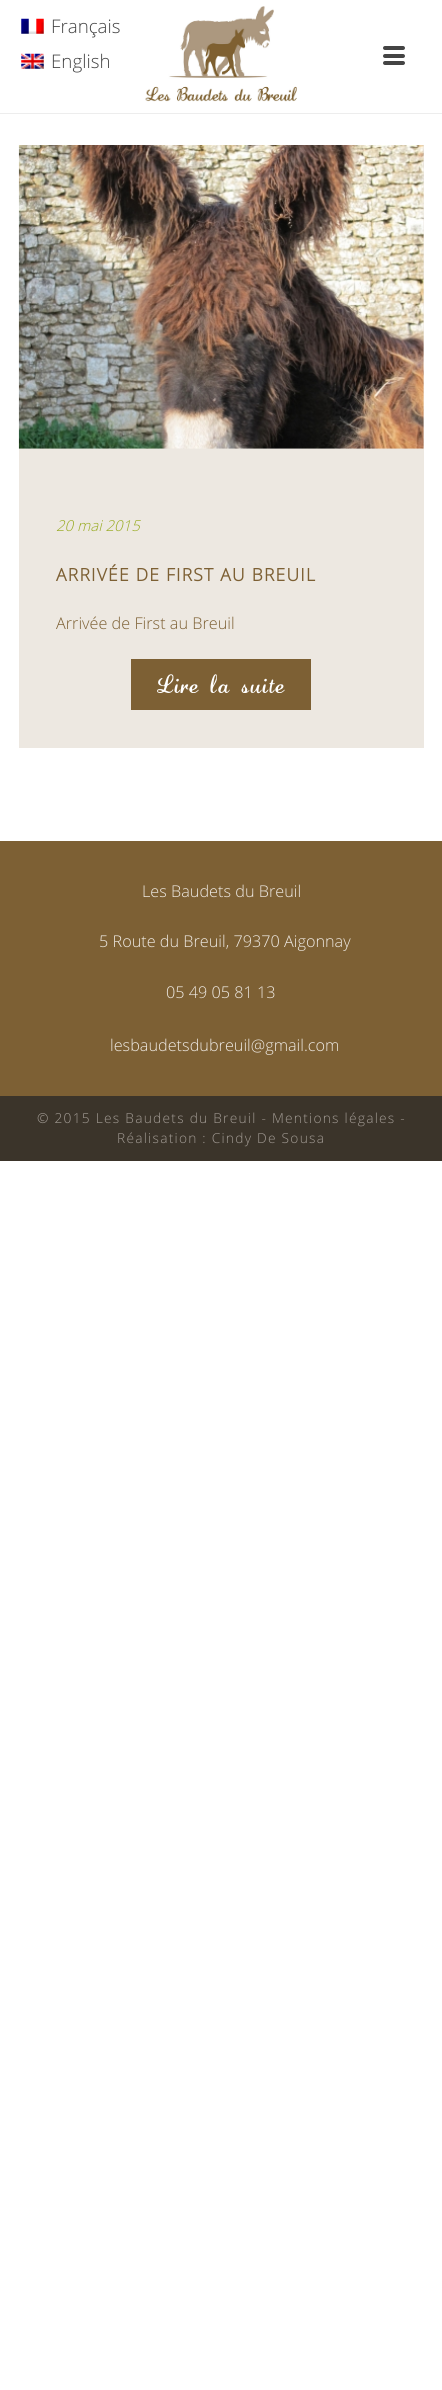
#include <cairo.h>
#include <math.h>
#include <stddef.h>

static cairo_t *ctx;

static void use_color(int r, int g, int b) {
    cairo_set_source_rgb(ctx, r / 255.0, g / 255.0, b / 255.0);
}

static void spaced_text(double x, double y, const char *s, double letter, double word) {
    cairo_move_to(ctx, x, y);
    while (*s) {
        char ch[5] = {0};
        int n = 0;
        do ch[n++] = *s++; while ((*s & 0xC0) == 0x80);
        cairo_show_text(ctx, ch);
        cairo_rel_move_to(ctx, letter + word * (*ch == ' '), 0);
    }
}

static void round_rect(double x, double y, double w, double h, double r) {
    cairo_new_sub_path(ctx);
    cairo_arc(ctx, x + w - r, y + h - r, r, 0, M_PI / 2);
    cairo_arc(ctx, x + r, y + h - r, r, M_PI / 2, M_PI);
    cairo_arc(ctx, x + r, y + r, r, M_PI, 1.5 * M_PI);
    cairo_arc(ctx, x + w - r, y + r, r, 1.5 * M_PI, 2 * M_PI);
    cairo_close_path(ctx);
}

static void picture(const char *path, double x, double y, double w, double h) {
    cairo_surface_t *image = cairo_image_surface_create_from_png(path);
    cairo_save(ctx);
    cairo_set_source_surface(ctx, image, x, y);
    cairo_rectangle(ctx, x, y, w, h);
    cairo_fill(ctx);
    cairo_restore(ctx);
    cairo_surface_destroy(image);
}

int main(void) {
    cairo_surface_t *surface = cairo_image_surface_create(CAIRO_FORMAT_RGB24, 442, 2390);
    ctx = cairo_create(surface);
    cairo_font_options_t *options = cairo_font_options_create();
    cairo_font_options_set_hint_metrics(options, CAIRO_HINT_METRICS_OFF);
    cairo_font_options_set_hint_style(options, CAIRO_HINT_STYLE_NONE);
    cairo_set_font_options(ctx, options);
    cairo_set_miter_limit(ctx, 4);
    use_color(255, 255, 255);
    cairo_paint(ctx);
    picture("img1.png", 21, 18, 23, 16);
    cairo_select_font_face(ctx, "Open Sans Light", CAIRO_FONT_SLANT_NORMAL, CAIRO_FONT_WEIGHT_NORMAL);
    cairo_set_font_size(ctx, 18.75);
    use_color(68, 68, 68);
    cairo_move_to(ctx, 51, 33);
    cairo_show_text(ctx, "Français");
    picture("img2.png", 21, 53, 23, 16);
    cairo_move_to(ctx, 51, 68);
    cairo_show_text(ctx, "English");
    use_color(237, 237, 237);
    cairo_rectangle(ctx, 0, 113, 442, 1);
    cairo_fill(ctx);
    picture("img3.png", 145, 6, 152, 96);
    use_color(68, 68, 68);
    round_rect(383, 46, 22, 4, 2);
    cairo_fill(ctx);
    round_rect(383, 54, 22, 4, 2);
    cairo_fill(ctx);
    round_rect(383, 61, 22, 4, 2);
    cairo_fill(ctx);
    use_color(237, 232, 225);
    cairo_rectangle(ctx, 19, 145, 405, 603);
    cairo_fill(ctx);
    picture("img4.png", 18, 145, 406, 304);
    cairo_select_font_face(ctx, "Open Sans Light", CAIRO_FONT_SLANT_ITALIC, CAIRO_FONT_WEIGHT_NORMAL);
    cairo_set_font_size(ctx, 15);
    use_color(153, 171, 35);
    cairo_move_to(ctx, 56, 531);
    cairo_show_text(ctx, "20 mai 2015");
    cairo_select_font_face(ctx, "Open Sans", CAIRO_FONT_SLANT_NORMAL, CAIRO_FONT_WEIGHT_BOLD);
    cairo_set_font_size(ctx, 17.5);
    use_color(125, 96, 52);
    spaced_text(56, 581, "ARRIVÉE DE FIRST AU BREUIL", 1.25, 0);
    cairo_select_font_face(ctx, "Open Sans Light", CAIRO_FONT_SLANT_NORMAL, CAIRO_FONT_WEIGHT_NORMAL);
    cairo_set_font_size(ctx, 16.25);
    cairo_move_to(ctx, 56, 629);
    cairo_show_text(ctx, "Arrivée de First au Breuil");
    cairo_rectangle(ctx, 131, 659, 180, 51);
    cairo_fill(ctx);
    cairo_select_font_face(ctx, "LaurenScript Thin", CAIRO_FONT_SLANT_NORMAL, CAIRO_FONT_WEIGHT_NORMAL);
    cairo_set_font_size(ctx, 18.75);
    use_color(255, 255, 255);
    spaced_text(157, 693, "Lire la suite", 1.25, 0);
    use_color(125, 96, 52);
    cairo_rectangle(ctx, 0, 841, 442, 255);
    cairo_fill(ctx);
    cairo_select_font_face(ctx, "Open Sans Light", CAIRO_FONT_SLANT_NORMAL, CAIRO_FONT_WEIGHT_NORMAL);
    cairo_set_font_size(ctx, 16.25);
    use_color(237, 232, 225);
    cairo_move_to(ctx, 142, 897);
    cairo_show_text(ctx, "Les Baudets du Breuil");
    cairo_move_to(ctx, 99, 947);
    cairo_show_text(ctx, "5 Route du Breuil, 79370 Aigonnay");
    cairo_move_to(ctx, 166, 998);
    cairo_show_text(ctx, "05 49 05 81 13");
    cairo_move_to(ctx, 110, 1051);
    cairo_show_text(ctx, "lesbaudetsdubreuil@gmail.com");
    use_color(59, 52, 42);
    cairo_rectangle(ctx, 0, 1096, 442, 65);
    cairo_fill(ctx);
    cairo_set_font_size(ctx, 13.75);
    use_color(162, 155, 148);
    spaced_text(37, 1123, "© 2015 Les Baudets du Breuil - Mentions légales -", 1.25, 0);
    spaced_text(117, 1143, "Réalisation : Cindy De Sousa", 1.25, 0);
    cairo_surface_write_to_png(surface, "result.png");
    cairo_font_options_destroy(options);
    cairo_destroy(ctx);
    cairo_surface_destroy(surface);
    return 0;
}
